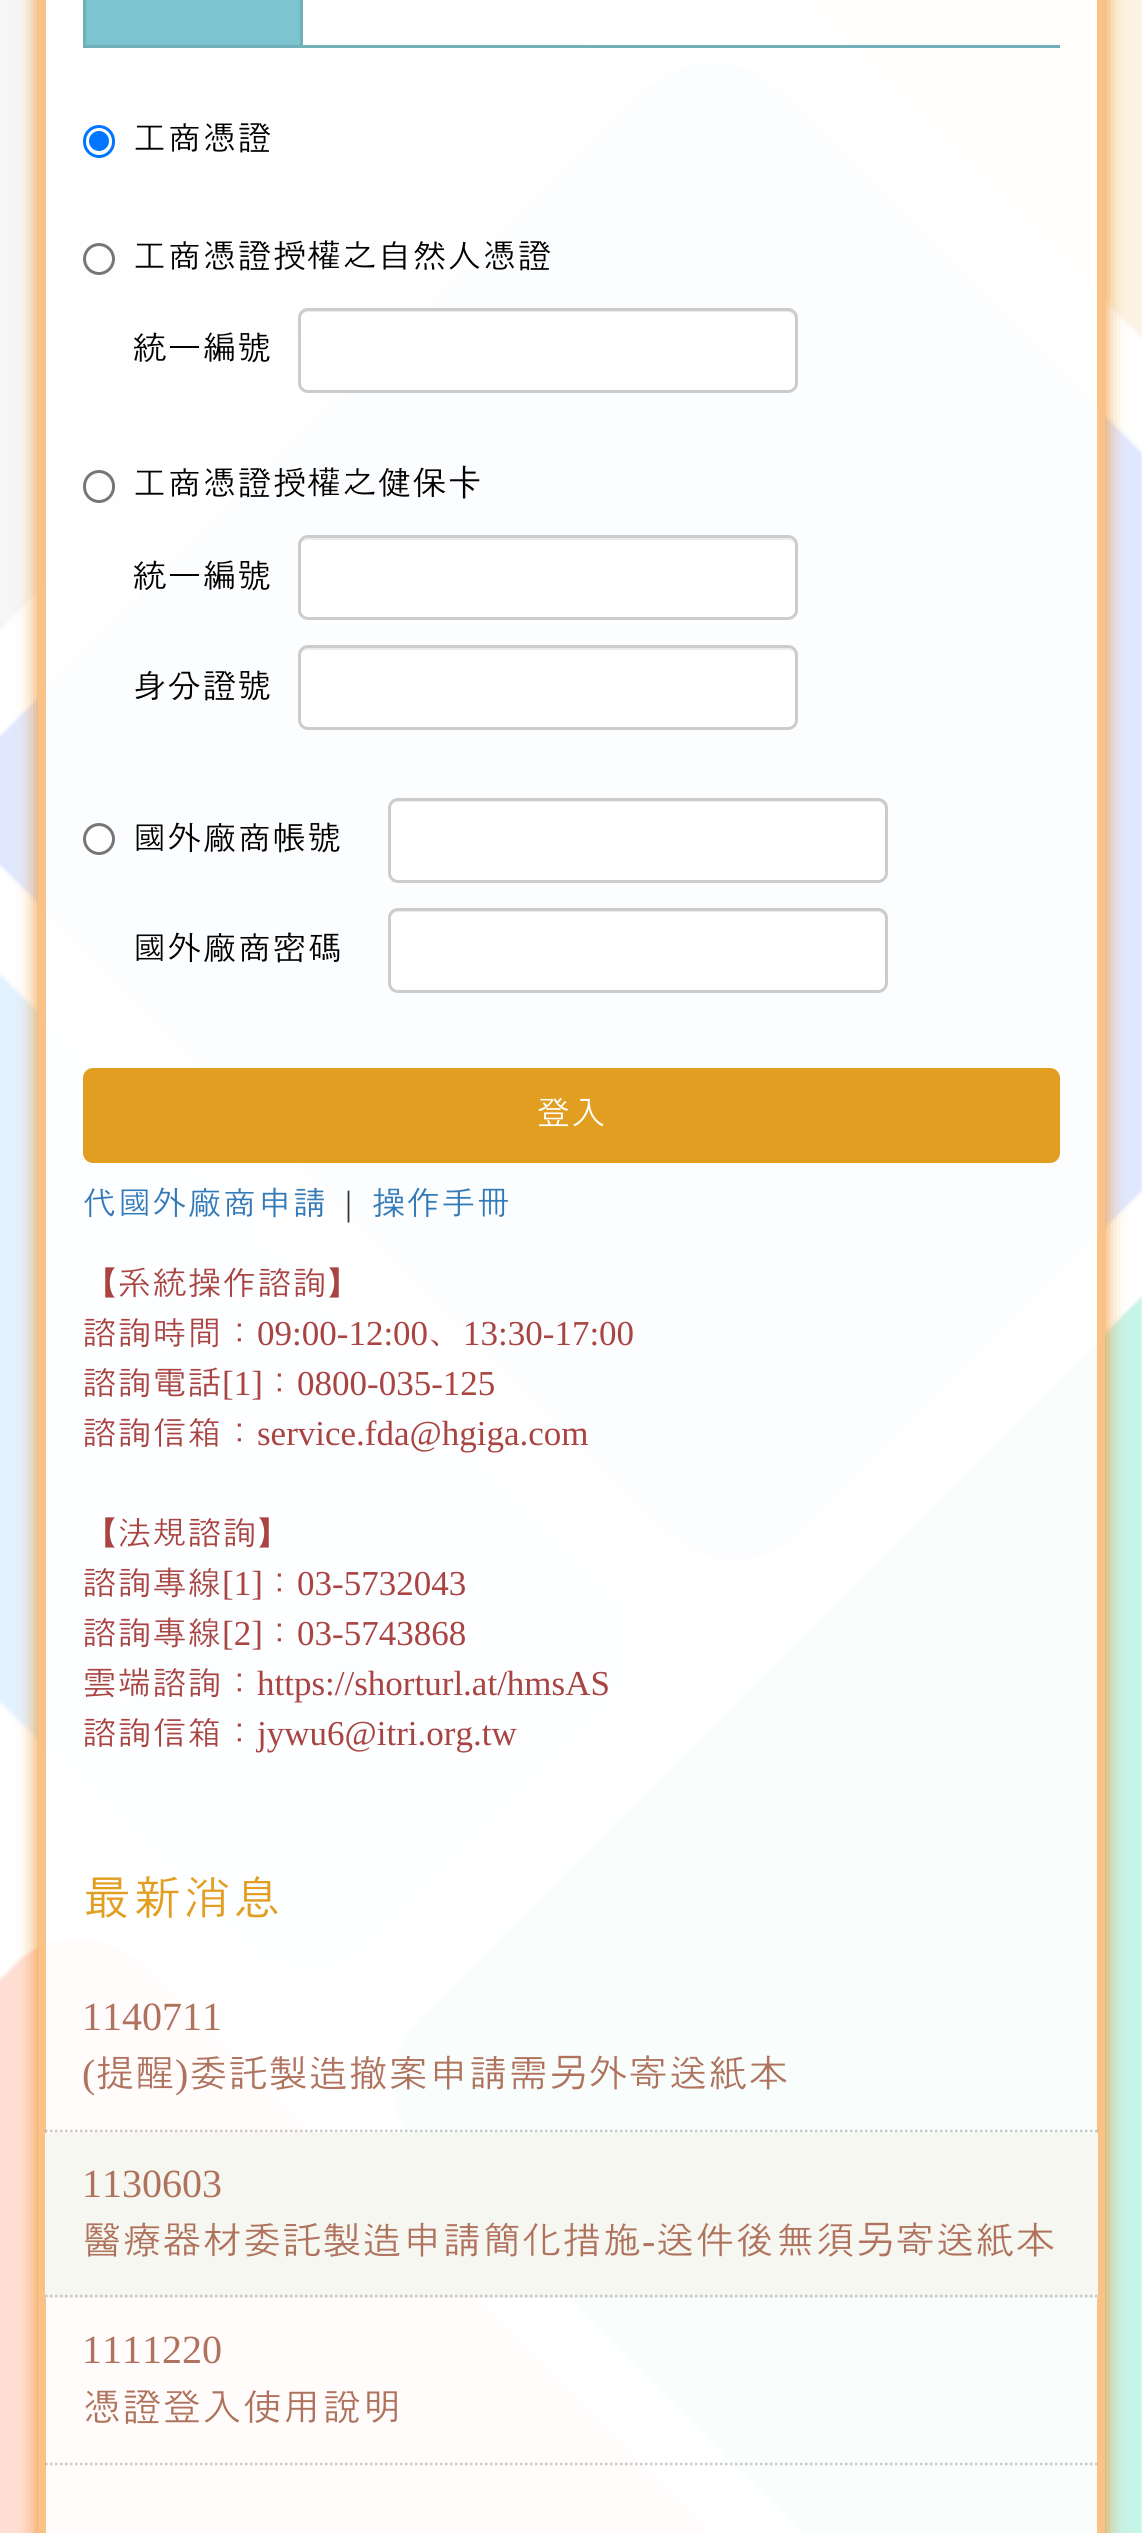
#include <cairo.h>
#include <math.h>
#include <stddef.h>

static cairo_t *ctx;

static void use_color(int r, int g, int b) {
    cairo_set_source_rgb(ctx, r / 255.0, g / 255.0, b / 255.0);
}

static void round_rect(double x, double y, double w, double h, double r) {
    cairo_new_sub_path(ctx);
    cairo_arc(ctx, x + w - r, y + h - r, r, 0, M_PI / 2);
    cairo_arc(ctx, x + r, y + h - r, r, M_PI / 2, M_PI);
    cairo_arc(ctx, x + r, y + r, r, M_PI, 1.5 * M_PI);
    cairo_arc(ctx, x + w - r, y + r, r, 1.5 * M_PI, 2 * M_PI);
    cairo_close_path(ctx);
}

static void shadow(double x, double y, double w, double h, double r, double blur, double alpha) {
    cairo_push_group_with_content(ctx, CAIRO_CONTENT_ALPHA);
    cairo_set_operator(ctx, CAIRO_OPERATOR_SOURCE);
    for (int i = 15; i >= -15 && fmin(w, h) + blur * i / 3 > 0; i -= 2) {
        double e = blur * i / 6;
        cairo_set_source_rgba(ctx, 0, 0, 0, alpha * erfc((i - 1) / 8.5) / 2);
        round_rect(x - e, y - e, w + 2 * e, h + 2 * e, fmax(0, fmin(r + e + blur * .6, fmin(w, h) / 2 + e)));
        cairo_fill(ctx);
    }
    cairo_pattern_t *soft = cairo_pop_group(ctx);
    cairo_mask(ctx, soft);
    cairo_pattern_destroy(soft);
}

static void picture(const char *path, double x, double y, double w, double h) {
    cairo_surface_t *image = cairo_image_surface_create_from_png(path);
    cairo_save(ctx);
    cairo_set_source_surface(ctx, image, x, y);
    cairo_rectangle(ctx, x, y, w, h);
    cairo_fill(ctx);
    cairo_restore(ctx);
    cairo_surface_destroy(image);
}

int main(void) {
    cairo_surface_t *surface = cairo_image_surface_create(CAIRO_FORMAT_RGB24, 1142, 2533);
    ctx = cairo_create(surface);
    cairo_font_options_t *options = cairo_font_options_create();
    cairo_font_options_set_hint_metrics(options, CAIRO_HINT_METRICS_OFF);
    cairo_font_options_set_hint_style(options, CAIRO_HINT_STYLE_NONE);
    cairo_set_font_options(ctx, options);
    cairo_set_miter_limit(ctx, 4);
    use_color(255, 255, 255);
    cairo_paint(ctx);
    picture("img1.png", 0, 0, 1142, 2533);
    cairo_save(ctx);
    cairo_set_fill_rule(ctx, CAIRO_FILL_RULE_EVEN_ODD);
    cairo_new_path(ctx);
    cairo_move_to(ctx, 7, 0);
    cairo_line_to(ctx, 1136, 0);
    cairo_line_to(ctx, 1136, 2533);
    cairo_line_to(ctx, 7, 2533);
    cairo_close_path(ctx);
    cairo_move_to(ctx, 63, -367);
    cairo_line_to(ctx, 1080, -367);
    cairo_curve_to(ctx, 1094, -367, 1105, -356, 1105, -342);
    cairo_line_to(ctx, 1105, 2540);
    cairo_curve_to(ctx, 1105, 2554, 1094, 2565, 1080, 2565);
    cairo_line_to(ctx, 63, 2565);
    cairo_curve_to(ctx, 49, 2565, 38, 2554, 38, 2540);
    cairo_line_to(ctx, 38, -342);
    cairo_curve_to(ctx, 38, -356, 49, -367, 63, -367);
    cairo_close_path(ctx);
    cairo_clip(ctx);
    use_color(241, 142, 31);
    shadow(38, -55, 1067, 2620, 25, 10, 1);
    cairo_restore(ctx);
    cairo_rectangle(ctx, 42, -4, 1059, 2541);
    use_color(251, 194, 135);
    cairo_set_line_width(ctx, 8);
    cairo_stroke(ctx);
    use_color(113, 175, 185);
    cairo_rectangle(ctx, 303, 45, 757, 3);
    cairo_fill(ctx);
    use_color(124, 196, 208);
    cairo_rectangle(ctx, 84.5, -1.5, 217, 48);
    cairo_fill_preserve(ctx);
    use_color(113, 175, 185);
    cairo_set_line_width(ctx, 3);
    cairo_stroke(ctx);
    round_rect(84.5, 126.5, 29, 30, 14.5);
    use_color(0, 117, 255);
    cairo_stroke(ctx);
    cairo_arc(ctx, 99, 141, 10, 0, 2 * M_PI);
    cairo_fill(ctx);
    cairo_select_font_face(ctx, "Dotum", CAIRO_FONT_SLANT_NORMAL, CAIRO_FONT_WEIGHT_NORMAL);
    cairo_set_font_size(ctx, 35);
    use_color(0, 0, 0);
    cairo_move_to(ctx, 132, 150);
    cairo_show_text(ctx, "工商憑證");
    cairo_new_path(ctx);
    cairo_arc(ctx, 99, 259, 14.5, 0, 2 * M_PI);
    use_color(118, 118, 118);
    cairo_stroke(ctx);
    use_color(0, 0, 0);
    cairo_move_to(ctx, 132, 268);
    cairo_show_text(ctx, "工商憑證授權之自然人憑證");
    cairo_move_to(ctx, 132, 360);
    cairo_show_text(ctx, "統一編號");
    use_color(255, 255, 255);
    round_rect(298, 308, 500, 85, 10);
    cairo_fill(ctx);
    use_color(236, 236, 236);
    cairo_new_path(ctx);
    cairo_move_to(ctx, 308, 312);
    cairo_line_to(ctx, 788, 312);
    cairo_curve_to(ctx, 792, 312, 795, 316, 795, 320);
    cairo_line_to(ctx, 795, 318);
    cairo_curve_to(ctx, 795, 314, 791, 310, 787, 310);
    cairo_line_to(ctx, 308, 310);
    cairo_curve_to(ctx, 304, 310, 300, 314, 300, 318);
    cairo_line_to(ctx, 300, 320);
    cairo_curve_to(ctx, 300, 316, 303, 312, 308, 312);
    cairo_close_path(ctx);
    cairo_fill(ctx);
    round_rect(299.5, 309.5, 497, 82, 8.5);
    use_color(204, 204, 204);
    cairo_stroke(ctx);
    round_rect(84.5, 471.5, 29, 30, 14.5);
    use_color(118, 118, 118);
    cairo_stroke(ctx);
    use_color(0, 0, 0);
    cairo_move_to(ctx, 132, 495);
    cairo_show_text(ctx, "工商憑證授權之健保卡");
    cairo_move_to(ctx, 132, 588);
    cairo_show_text(ctx, "統一編號");
    use_color(255, 255, 255);
    round_rect(298, 535, 500, 85, 10);
    cairo_fill(ctx);
    use_color(236, 236, 236);
    cairo_new_path(ctx);
    cairo_move_to(ctx, 308, 540);
    cairo_line_to(ctx, 788, 540);
    cairo_curve_to(ctx, 792, 540, 795, 543, 795, 548);
    cairo_line_to(ctx, 795, 546);
    cairo_curve_to(ctx, 795, 542, 791, 538, 787, 538);
    cairo_line_to(ctx, 308, 538);
    cairo_curve_to(ctx, 304, 538, 300, 542, 300, 546);
    cairo_line_to(ctx, 300, 548);
    cairo_curve_to(ctx, 300, 543, 303, 540, 308, 540);
    cairo_close_path(ctx);
    cairo_fill(ctx);
    round_rect(299.5, 536.5, 497, 82, 8.5);
    use_color(204, 204, 204);
    cairo_stroke(ctx);
    use_color(0, 0, 0);
    cairo_move_to(ctx, 132, 698);
    cairo_show_text(ctx, "身分證號");
    use_color(255, 255, 255);
    round_rect(298, 645, 500, 85, 10);
    cairo_fill(ctx);
    use_color(236, 236, 236);
    cairo_new_path(ctx);
    cairo_move_to(ctx, 308, 650);
    cairo_line_to(ctx, 788, 650);
    cairo_curve_to(ctx, 792, 650, 795, 653, 795, 658);
    cairo_line_to(ctx, 795, 656);
    cairo_curve_to(ctx, 795, 652, 791, 648, 787, 648);
    cairo_line_to(ctx, 308, 648);
    cairo_curve_to(ctx, 304, 648, 300, 652, 300, 656);
    cairo_line_to(ctx, 300, 658);
    cairo_curve_to(ctx, 300, 653, 303, 650, 308, 650);
    cairo_close_path(ctx);
    cairo_fill(ctx);
    round_rect(299.5, 646.5, 497, 82, 8.5);
    use_color(204, 204, 204);
    cairo_stroke(ctx);
    use_color(255, 255, 255);
    cairo_arc(ctx, 99, 839, 14.5, 0, 2 * M_PI);
    cairo_fill_preserve(ctx);
    use_color(118, 118, 118);
    cairo_stroke(ctx);
    use_color(0, 0, 0);
    cairo_move_to(ctx, 132, 850);
    cairo_show_text(ctx, "國外廠商帳號");
    use_color(255, 255, 255);
    round_rect(388, 798, 500, 85, 10);
    cairo_fill(ctx);
    use_color(236, 236, 236);
    cairo_new_path(ctx);
    cairo_move_to(ctx, 398, 802);
    cairo_line_to(ctx, 878, 802);
    cairo_curve_to(ctx, 882, 802, 885, 806, 885, 810);
    cairo_line_to(ctx, 885, 808);
    cairo_curve_to(ctx, 885, 804, 881, 800, 877, 800);
    cairo_line_to(ctx, 398, 800);
    cairo_curve_to(ctx, 394, 800, 390, 804, 390, 808);
    cairo_line_to(ctx, 390, 810);
    cairo_curve_to(ctx, 390, 806, 393, 802, 398, 802);
    cairo_close_path(ctx);
    cairo_fill(ctx);
    round_rect(389.5, 799.5, 497, 82, 8.5);
    use_color(204, 204, 204);
    cairo_stroke(ctx);
    use_color(0, 0, 0);
    cairo_move_to(ctx, 132, 960);
    cairo_show_text(ctx, "國外廠商密碼");
    use_color(255, 255, 255);
    round_rect(388, 908, 500, 85, 10);
    cairo_fill(ctx);
    use_color(236, 236, 236);
    cairo_new_path(ctx);
    cairo_move_to(ctx, 398, 912);
    cairo_line_to(ctx, 878, 912);
    cairo_curve_to(ctx, 882, 912, 885, 916, 885, 920);
    cairo_line_to(ctx, 885, 918);
    cairo_curve_to(ctx, 885, 914, 881, 910, 877, 910);
    cairo_line_to(ctx, 398, 910);
    cairo_curve_to(ctx, 394, 910, 390, 914, 390, 918);
    cairo_line_to(ctx, 390, 920);
    cairo_curve_to(ctx, 390, 916, 393, 912, 398, 912);
    cairo_close_path(ctx);
    cairo_fill(ctx);
    round_rect(389.5, 909.5, 497, 82, 8.5);
    use_color(204, 204, 204);
    cairo_stroke(ctx);
    use_color(226, 158, 33);
    round_rect(84.5, 1069.5, 974, 92, 8.5);
    cairo_fill_preserve(ctx);
    cairo_stroke(ctx);
    use_color(255, 255, 255);
    cairo_move_to(ctx, 536, 1125);
    cairo_show_text(ctx, "登入");
    use_color(51, 122, 183);
    cairo_move_to(ctx, 82, 1215);
    cairo_show_text(ctx, "代國外廠商申請");
    cairo_select_font_face(ctx, "Liberation Serif", CAIRO_FONT_SLANT_NORMAL, CAIRO_FONT_WEIGHT_NORMAL);
    use_color(51, 51, 51);
    cairo_move_to(ctx, 345, 1215);
    cairo_show_text(ctx, "|");
    cairo_select_font_face(ctx, "Dotum", CAIRO_FONT_SLANT_NORMAL, CAIRO_FONT_WEIGHT_NORMAL);
    use_color(51, 122, 183);
    cairo_move_to(ctx, 371, 1215);
    cairo_show_text(ctx, "操作手冊");
    use_color(169, 68, 66);
    cairo_move_to(ctx, 82, 1295);
    cairo_show_text(ctx, "【系統操作諮詢】");
    cairo_move_to(ctx, 82, 1345);
    cairo_show_text(ctx, "諮詢時間：");
    cairo_select_font_face(ctx, "Liberation Serif", CAIRO_FONT_SLANT_NORMAL, CAIRO_FONT_WEIGHT_NORMAL);
    cairo_move_to(ctx, 257, 1345);
    cairo_show_text(ctx, "09:00-12:00");
    cairo_select_font_face(ctx, "Dotum", CAIRO_FONT_SLANT_NORMAL, CAIRO_FONT_WEIGHT_NORMAL);
    cairo_move_to(ctx, 428, 1345);
    cairo_show_text(ctx, "、");
    cairo_select_font_face(ctx, "Liberation Serif", CAIRO_FONT_SLANT_NORMAL, CAIRO_FONT_WEIGHT_NORMAL);
    cairo_move_to(ctx, 463, 1345);
    cairo_show_text(ctx, "13:30-17:00");
    cairo_select_font_face(ctx, "Dotum", CAIRO_FONT_SLANT_NORMAL, CAIRO_FONT_WEIGHT_NORMAL);
    cairo_move_to(ctx, 82, 1395);
    cairo_show_text(ctx, "諮詢電話");
    cairo_select_font_face(ctx, "Liberation Serif", CAIRO_FONT_SLANT_NORMAL, CAIRO_FONT_WEIGHT_NORMAL);
    cairo_move_to(ctx, 222, 1395);
    cairo_show_text(ctx, "[1]");
    cairo_select_font_face(ctx, "Dotum", CAIRO_FONT_SLANT_NORMAL, CAIRO_FONT_WEIGHT_NORMAL);
    cairo_move_to(ctx, 262, 1395);
    cairo_show_text(ctx, "：");
    cairo_select_font_face(ctx, "Liberation Serif", CAIRO_FONT_SLANT_NORMAL, CAIRO_FONT_WEIGHT_NORMAL);
    cairo_move_to(ctx, 297, 1395);
    cairo_show_text(ctx, "0800-035-125");
    cairo_select_font_face(ctx, "Dotum", CAIRO_FONT_SLANT_NORMAL, CAIRO_FONT_WEIGHT_NORMAL);
    cairo_move_to(ctx, 82, 1445);
    cairo_show_text(ctx, "諮詢信箱：");
    cairo_select_font_face(ctx, "Liberation Serif", CAIRO_FONT_SLANT_NORMAL, CAIRO_FONT_WEIGHT_NORMAL);
    cairo_move_to(ctx, 257, 1445);
    cairo_show_text(ctx, "service.fda@hgiga.com");
    cairo_select_font_face(ctx, "Dotum", CAIRO_FONT_SLANT_NORMAL, CAIRO_FONT_WEIGHT_NORMAL);
    cairo_move_to(ctx, 82, 1545);
    cairo_show_text(ctx, "【法規諮詢】");
    cairo_move_to(ctx, 82, 1595);
    cairo_show_text(ctx, "諮詢專線");
    cairo_select_font_face(ctx, "Liberation Serif", CAIRO_FONT_SLANT_NORMAL, CAIRO_FONT_WEIGHT_NORMAL);
    cairo_move_to(ctx, 222, 1595);
    cairo_show_text(ctx, "[1]");
    cairo_select_font_face(ctx, "Dotum", CAIRO_FONT_SLANT_NORMAL, CAIRO_FONT_WEIGHT_NORMAL);
    cairo_move_to(ctx, 262, 1595);
    cairo_show_text(ctx, "：");
    cairo_select_font_face(ctx, "Liberation Serif", CAIRO_FONT_SLANT_NORMAL, CAIRO_FONT_WEIGHT_NORMAL);
    cairo_move_to(ctx, 297, 1595);
    cairo_show_text(ctx, "03-5732043");
    cairo_select_font_face(ctx, "Dotum", CAIRO_FONT_SLANT_NORMAL, CAIRO_FONT_WEIGHT_NORMAL);
    cairo_move_to(ctx, 82, 1645);
    cairo_show_text(ctx, "諮詢專線");
    cairo_select_font_face(ctx, "Liberation Serif", CAIRO_FONT_SLANT_NORMAL, CAIRO_FONT_WEIGHT_NORMAL);
    cairo_move_to(ctx, 222, 1645);
    cairo_show_text(ctx, "[2]");
    cairo_select_font_face(ctx, "Dotum", CAIRO_FONT_SLANT_NORMAL, CAIRO_FONT_WEIGHT_NORMAL);
    cairo_move_to(ctx, 262, 1645);
    cairo_show_text(ctx, "：");
    cairo_select_font_face(ctx, "Liberation Serif", CAIRO_FONT_SLANT_NORMAL, CAIRO_FONT_WEIGHT_NORMAL);
    cairo_move_to(ctx, 297, 1645);
    cairo_show_text(ctx, "03-5743868");
    cairo_select_font_face(ctx, "Dotum", CAIRO_FONT_SLANT_NORMAL, CAIRO_FONT_WEIGHT_NORMAL);
    cairo_move_to(ctx, 82, 1695);
    cairo_show_text(ctx, "雲端諮詢：");
    cairo_select_font_face(ctx, "Liberation Serif", CAIRO_FONT_SLANT_NORMAL, CAIRO_FONT_WEIGHT_NORMAL);
    cairo_move_to(ctx, 257, 1695);
    cairo_show_text(ctx, "https://shorturl.at/hmsAS");
    cairo_select_font_face(ctx, "Dotum", CAIRO_FONT_SLANT_NORMAL, CAIRO_FONT_WEIGHT_NORMAL);
    cairo_move_to(ctx, 82, 1745);
    cairo_show_text(ctx, "諮詢信箱：");
    cairo_select_font_face(ctx, "Liberation Serif", CAIRO_FONT_SLANT_NORMAL, CAIRO_FONT_WEIGHT_NORMAL);
    cairo_move_to(ctx, 257, 1745);
    cairo_show_text(ctx, "jywu6@itri.org.tw");
    cairo_select_font_face(ctx, "Dotum", CAIRO_FONT_SLANT_NORMAL, CAIRO_FONT_WEIGHT_NORMAL);
    cairo_set_font_size(ctx, 50);
    use_color(226, 158, 33);
    cairo_move_to(ctx, 82, 1915);
    cairo_show_text(ctx, "最新消息");
    cairo_new_path(ctx);
    cairo_move_to(ctx, 45, 2131);
    cairo_line_to(ctx, 1097.5, 2131);
    cairo_set_source_rgba(ctx, 0.502, 0.502, 0.502, 0.4);
    cairo_set_line_width(ctx, 2.5);
    cairo_set_dash(ctx, (double[]){2.5, 2.5}, 2, 0);
    cairo_stroke(ctx);
    cairo_select_font_face(ctx, "Liberation Serif", CAIRO_FONT_SLANT_NORMAL, CAIRO_FONT_WEIGHT_NORMAL);
    cairo_set_font_size(ctx, 40);
    use_color(175, 114, 93);
    cairo_move_to(ctx, 82, 2030);
    cairo_show_text(ctx, "1140711");
    cairo_move_to(ctx, 82, 2087);
    cairo_show_text(ctx, "(");
    cairo_select_font_face(ctx, "Dotum", CAIRO_FONT_SLANT_NORMAL, CAIRO_FONT_WEIGHT_NORMAL);
    cairo_move_to(ctx, 95, 2087);
    cairo_show_text(ctx, "提醒 委託製造撤案申請需另外寄送紙本");
    cairo_select_font_face(ctx, "Liberation Serif", CAIRO_FONT_SLANT_NORMAL, CAIRO_FONT_WEIGHT_NORMAL);
    cairo_move_to(ctx, 175, 2087);
    cairo_show_text(ctx, ")");
    use_color(247, 247, 242);
    cairo_rectangle(ctx, 45, 2133, 1053, 165);
    cairo_fill(ctx);
    cairo_new_path(ctx);
    cairo_move_to(ctx, 45, 2296);
    cairo_line_to(ctx, 1097.5, 2296);
    use_color(199, 199, 196);
    cairo_stroke(ctx);
    use_color(175, 114, 93);
    cairo_move_to(ctx, 82, 2197);
    cairo_show_text(ctx, "1130603");
    cairo_select_font_face(ctx, "Dotum", CAIRO_FONT_SLANT_NORMAL, CAIRO_FONT_WEIGHT_NORMAL);
    cairo_move_to(ctx, 82, 2254);
    cairo_show_text(ctx, "醫療器材委託製造申請簡化措施 送件後無須另寄送紙本");
    cairo_select_font_face(ctx, "Liberation Serif", CAIRO_FONT_SLANT_NORMAL, CAIRO_FONT_WEIGHT_NORMAL);
    cairo_move_to(ctx, 642, 2254);
    cairo_show_text(ctx, "-");
    cairo_new_path(ctx);
    cairo_move_to(ctx, 45, 2464);
    cairo_line_to(ctx, 1097.5, 2464);
    cairo_set_source_rgba(ctx, 0.502, 0.502, 0.502, 0.4);
    cairo_stroke(ctx);
    use_color(175, 114, 93);
    cairo_move_to(ctx, 82, 2363);
    cairo_show_text(ctx, "1111220");
    cairo_select_font_face(ctx, "Dotum", CAIRO_FONT_SLANT_NORMAL, CAIRO_FONT_WEIGHT_NORMAL);
    cairo_move_to(ctx, 82, 2421);
    cairo_show_text(ctx, "憑證登入使用說明");
    cairo_surface_write_to_png(surface, "result.png");
    cairo_font_options_destroy(options);
    cairo_destroy(ctx);
    cairo_surface_destroy(surface);
    return 0;
}
